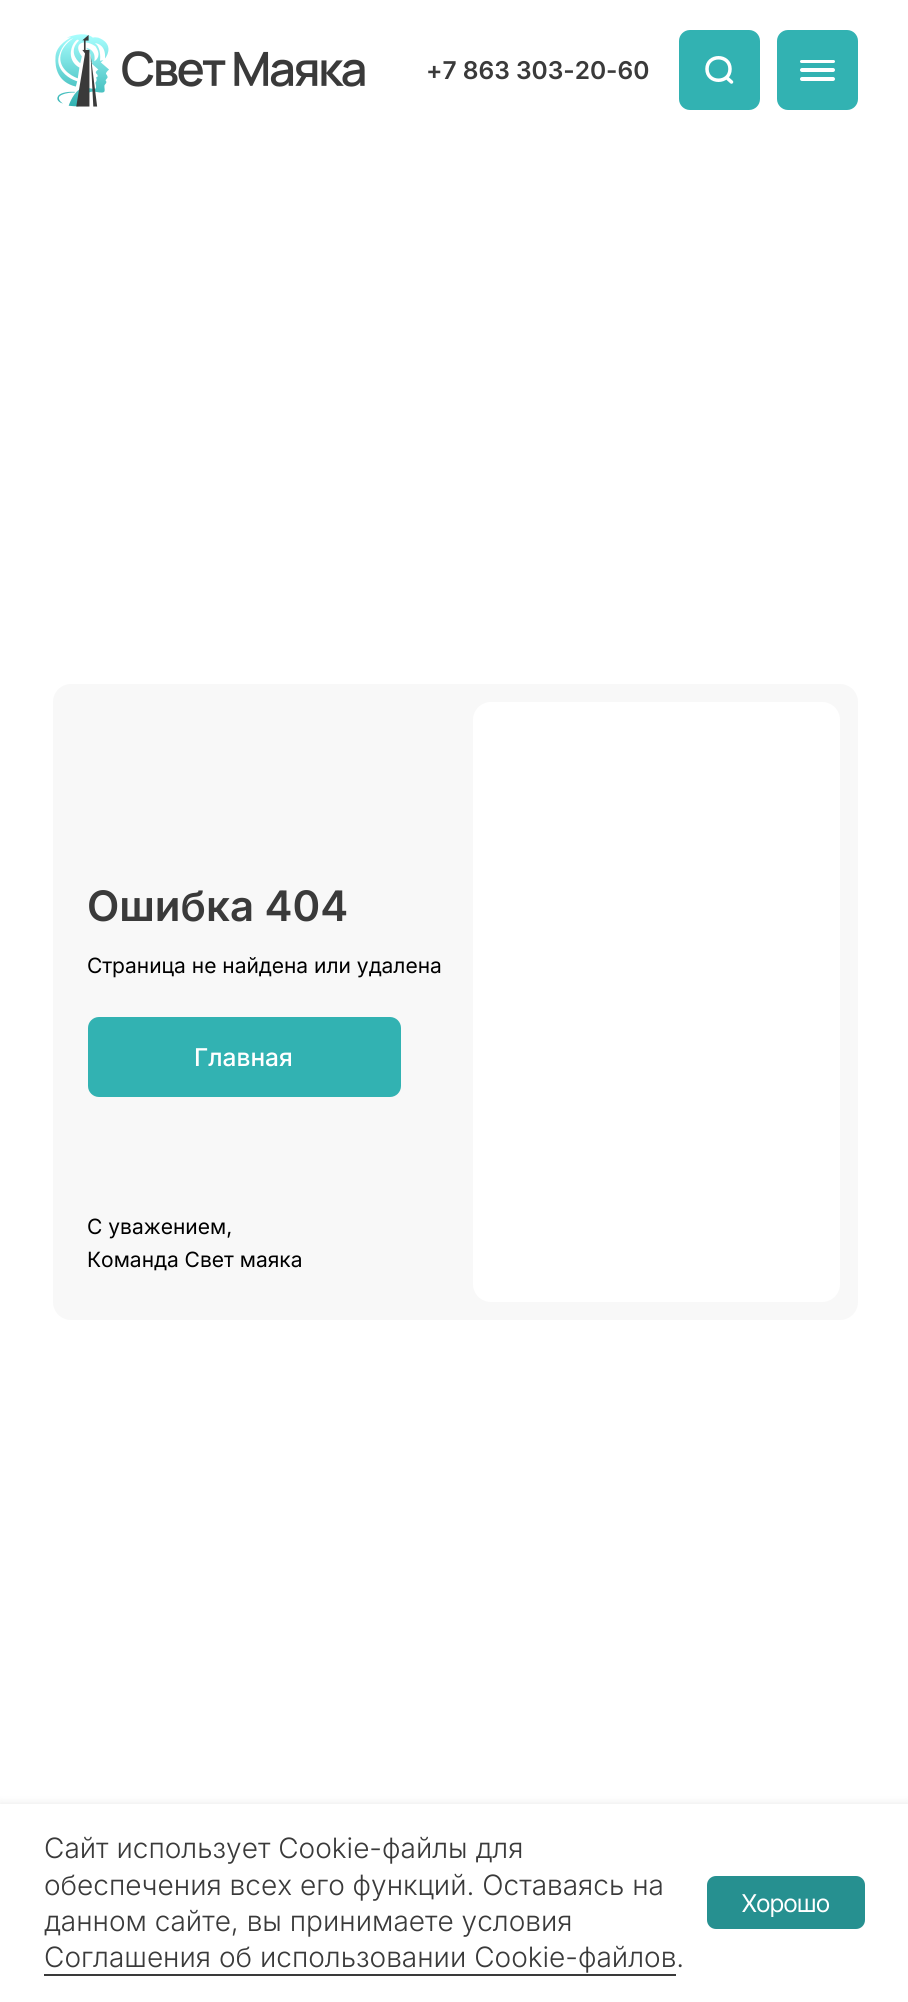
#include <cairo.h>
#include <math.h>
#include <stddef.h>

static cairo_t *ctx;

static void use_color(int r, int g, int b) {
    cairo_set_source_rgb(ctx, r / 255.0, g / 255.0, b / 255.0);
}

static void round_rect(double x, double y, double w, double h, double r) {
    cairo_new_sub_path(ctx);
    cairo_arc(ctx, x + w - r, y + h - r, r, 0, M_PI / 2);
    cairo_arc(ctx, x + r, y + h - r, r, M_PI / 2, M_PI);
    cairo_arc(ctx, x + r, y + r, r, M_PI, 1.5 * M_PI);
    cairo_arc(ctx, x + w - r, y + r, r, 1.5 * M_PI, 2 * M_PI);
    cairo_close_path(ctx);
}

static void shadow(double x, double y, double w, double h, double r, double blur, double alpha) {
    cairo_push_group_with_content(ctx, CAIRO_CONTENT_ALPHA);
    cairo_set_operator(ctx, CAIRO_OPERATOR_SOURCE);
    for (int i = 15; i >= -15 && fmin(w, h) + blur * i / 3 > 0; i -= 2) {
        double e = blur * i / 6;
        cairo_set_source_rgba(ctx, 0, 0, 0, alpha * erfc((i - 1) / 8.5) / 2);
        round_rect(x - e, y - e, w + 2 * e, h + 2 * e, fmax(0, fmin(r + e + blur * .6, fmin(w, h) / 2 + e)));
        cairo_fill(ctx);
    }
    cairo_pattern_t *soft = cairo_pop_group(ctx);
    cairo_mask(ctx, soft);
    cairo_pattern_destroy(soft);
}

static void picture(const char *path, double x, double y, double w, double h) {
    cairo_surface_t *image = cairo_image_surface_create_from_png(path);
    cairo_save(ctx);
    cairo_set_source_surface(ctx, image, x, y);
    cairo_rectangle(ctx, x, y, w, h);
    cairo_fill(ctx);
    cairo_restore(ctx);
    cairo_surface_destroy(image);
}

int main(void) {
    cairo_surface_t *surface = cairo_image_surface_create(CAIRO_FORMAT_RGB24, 908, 2002);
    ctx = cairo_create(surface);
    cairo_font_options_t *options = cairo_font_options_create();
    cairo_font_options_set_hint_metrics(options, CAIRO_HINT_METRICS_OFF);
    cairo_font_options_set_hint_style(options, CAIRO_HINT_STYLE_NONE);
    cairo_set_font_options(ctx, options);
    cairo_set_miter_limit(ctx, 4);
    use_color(255, 255, 255);
    cairo_paint(ctx);
    picture("img1.png", 55, 34, 310, 73);
    cairo_select_font_face(ctx, "Inter SemiBold", CAIRO_FONT_SLANT_NORMAL, CAIRO_FONT_WEIGHT_NORMAL);
    cairo_set_font_size(ctx, 24.5);
    use_color(58, 58, 58);
    cairo_move_to(ctx, 426, 79);
    cairo_show_text(ctx, "+7 863 303-20-60");
    use_color(50, 178, 178);
    round_rect(679, 30, 81, 80, 11);
    cairo_fill(ctx);
    cairo_new_path(ctx);
    cairo_move_to(ctx, 726.5, 77.5);
    cairo_line_to(ctx, 731.5, 82);
    cairo_move_to(ctx, 730, 69);
    cairo_curve_to(ctx, 730, 84, 707, 84, 707, 69);
    cairo_curve_to(ctx, 707, 54, 730, 54, 730, 69);
    cairo_close_path(ctx);
    use_color(255, 255, 255);
    cairo_set_line_width(ctx, 3.5);
    cairo_set_line_cap(ctx, CAIRO_LINE_CAP_ROUND);
    cairo_stroke(ctx);
    use_color(50, 178, 178);
    round_rect(777, 30, 81, 80, 11);
    cairo_fill(ctx);
    use_color(255, 255, 255);
    round_rect(800, 60, 35, 3, 1.5);
    cairo_fill(ctx);
    round_rect(800, 68, 35, 4, 2);
    cairo_fill(ctx);
    round_rect(800, 77, 35, 4, 2);
    cairo_fill(ctx);
    use_color(248, 248, 248);
    round_rect(53, 684, 805, 636, 18);
    cairo_fill(ctx);
    cairo_set_font_size(ctx, 42);
    use_color(58, 58, 58);
    cairo_move_to(ctx, 87, 921);
    cairo_show_text(ctx, "Ошибка 404");
    cairo_select_font_face(ctx, "Inter", CAIRO_FONT_SLANT_NORMAL, CAIRO_FONT_WEIGHT_NORMAL);
    cairo_set_font_size(ctx, 21);
    use_color(0, 0, 0);
    cairo_move_to(ctx, 87, 973);
    cairo_show_text(ctx, "Страница не найдена или удалена");
    use_color(50, 178, 178);
    round_rect(88, 1017, 313, 80, 11);
    cairo_fill(ctx);
    cairo_select_font_face(ctx, "Inter Medium", CAIRO_FONT_SLANT_NORMAL, CAIRO_FONT_WEIGHT_NORMAL);
    cairo_set_font_size(ctx, 24.5);
    use_color(255, 255, 255);
    cairo_move_to(ctx, 194, 1066);
    cairo_show_text(ctx, "Главная");
    round_rect(473, 702, 367, 600, 18);
    cairo_fill(ctx);
    cairo_select_font_face(ctx, "Inter", CAIRO_FONT_SLANT_NORMAL, CAIRO_FONT_WEIGHT_NORMAL);
    cairo_set_font_size(ctx, 21);
    use_color(0, 0, 0);
    cairo_move_to(ctx, 87, 1234);
    cairo_show_text(ctx, "С уважением,");
    cairo_move_to(ctx, 87, 1267);
    cairo_show_text(ctx, "Команда Свет маяка");
    use_color(0, 0, 0);
    shadow(0, 1804, 908, 198, 0, 4.5, 0.1);
    use_color(255, 255, 255);
    cairo_rectangle(ctx, 0, 1804, 908, 198);
    cairo_fill(ctx);
    cairo_select_font_face(ctx, "Inter Light", CAIRO_FONT_SLANT_NORMAL, CAIRO_FONT_WEIGHT_NORMAL);
    cairo_set_font_size(ctx, 28);
    use_color(58, 58, 58);
    cairo_move_to(ctx, 44, 1858);
    cairo_show_text(ctx, "Сайт использует Cookie-файлы для");
    cairo_move_to(ctx, 44, 1895);
    cairo_show_text(ctx, "обеспечения всех его функций. Оставаясь на");
    cairo_move_to(ctx, 44, 1931);
    cairo_show_text(ctx, "данном сайте, вы принимаете условия");
    cairo_move_to(ctx, 44, 1967);
    cairo_show_text(ctx, "Соглашения об использовании Cookie-файлов.");
    cairo_rectangle(ctx, 44, 1974, 632, 2);
    cairo_fill(ctx);
    use_color(38, 144, 144);
    round_rect(707, 1876, 158, 53, 9);
    cairo_fill(ctx);
    cairo_select_font_face(ctx, "Inter Tight", CAIRO_FONT_SLANT_NORMAL, CAIRO_FONT_WEIGHT_NORMAL);
    cairo_set_font_size(ctx, 24.5);
    use_color(255, 255, 255);
    cairo_move_to(ctx, 742, 1912);
    cairo_show_text(ctx, "Хорошо");
    cairo_surface_write_to_png(surface, "result.png");
    cairo_font_options_destroy(options);
    cairo_destroy(ctx);
    cairo_surface_destroy(surface);
    return 0;
}
